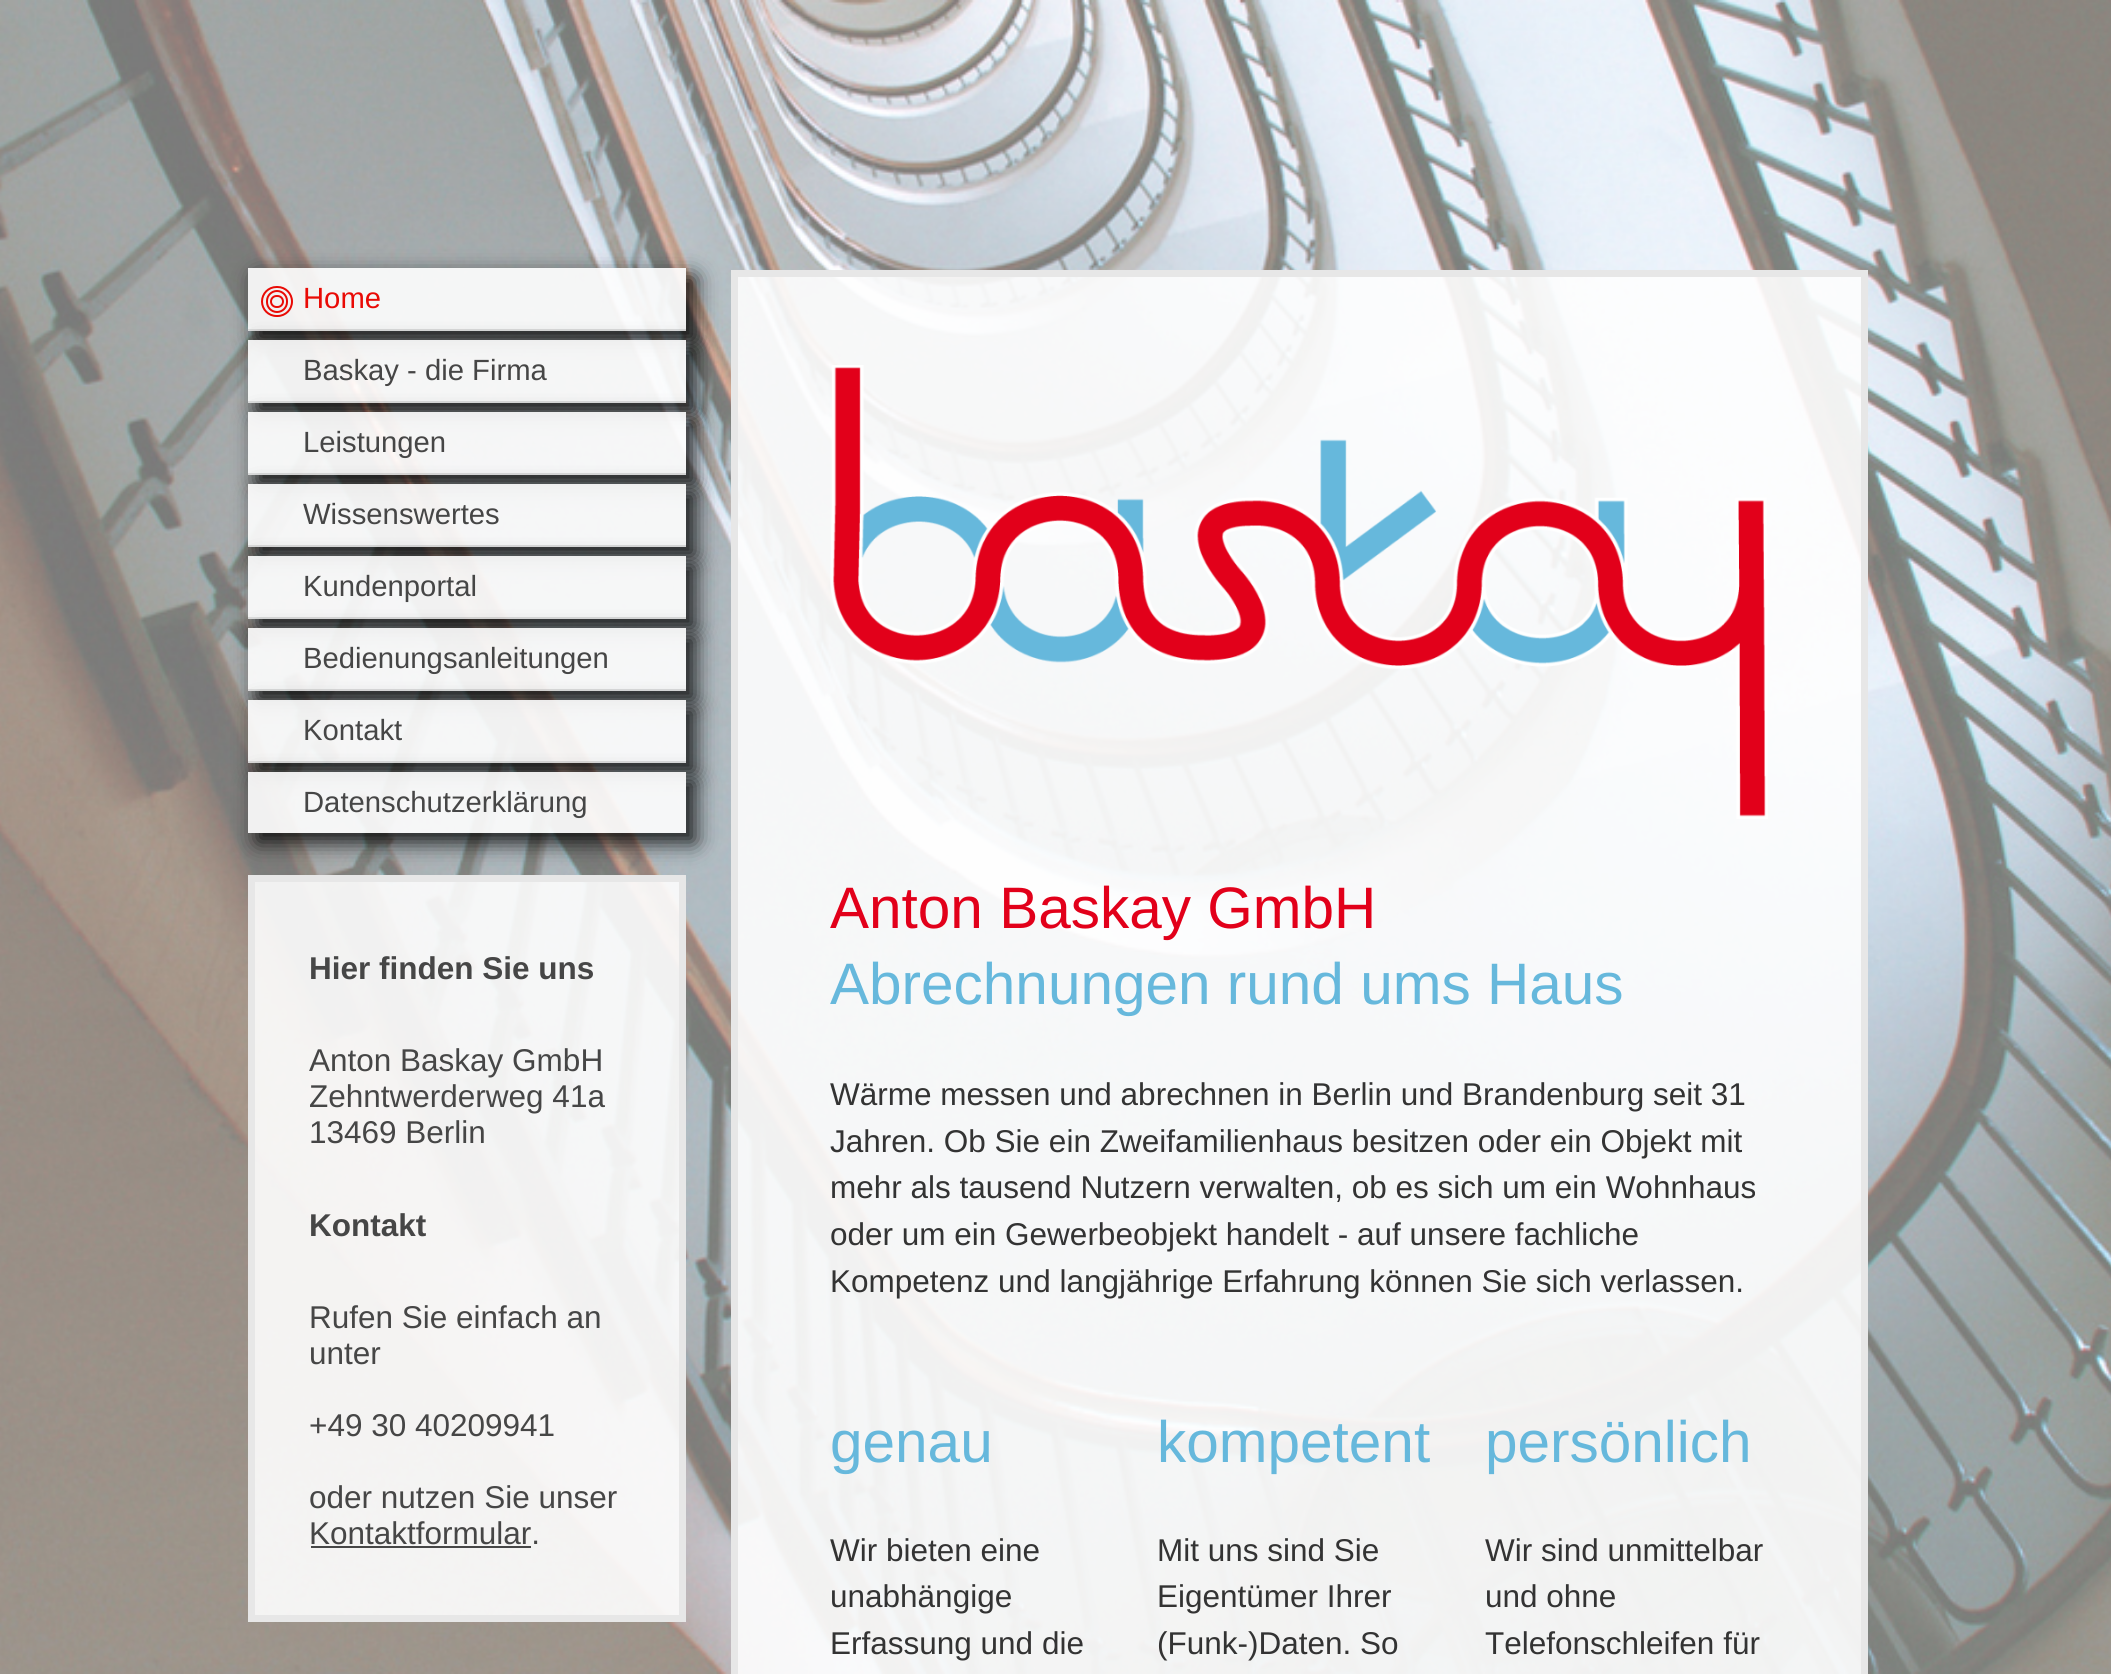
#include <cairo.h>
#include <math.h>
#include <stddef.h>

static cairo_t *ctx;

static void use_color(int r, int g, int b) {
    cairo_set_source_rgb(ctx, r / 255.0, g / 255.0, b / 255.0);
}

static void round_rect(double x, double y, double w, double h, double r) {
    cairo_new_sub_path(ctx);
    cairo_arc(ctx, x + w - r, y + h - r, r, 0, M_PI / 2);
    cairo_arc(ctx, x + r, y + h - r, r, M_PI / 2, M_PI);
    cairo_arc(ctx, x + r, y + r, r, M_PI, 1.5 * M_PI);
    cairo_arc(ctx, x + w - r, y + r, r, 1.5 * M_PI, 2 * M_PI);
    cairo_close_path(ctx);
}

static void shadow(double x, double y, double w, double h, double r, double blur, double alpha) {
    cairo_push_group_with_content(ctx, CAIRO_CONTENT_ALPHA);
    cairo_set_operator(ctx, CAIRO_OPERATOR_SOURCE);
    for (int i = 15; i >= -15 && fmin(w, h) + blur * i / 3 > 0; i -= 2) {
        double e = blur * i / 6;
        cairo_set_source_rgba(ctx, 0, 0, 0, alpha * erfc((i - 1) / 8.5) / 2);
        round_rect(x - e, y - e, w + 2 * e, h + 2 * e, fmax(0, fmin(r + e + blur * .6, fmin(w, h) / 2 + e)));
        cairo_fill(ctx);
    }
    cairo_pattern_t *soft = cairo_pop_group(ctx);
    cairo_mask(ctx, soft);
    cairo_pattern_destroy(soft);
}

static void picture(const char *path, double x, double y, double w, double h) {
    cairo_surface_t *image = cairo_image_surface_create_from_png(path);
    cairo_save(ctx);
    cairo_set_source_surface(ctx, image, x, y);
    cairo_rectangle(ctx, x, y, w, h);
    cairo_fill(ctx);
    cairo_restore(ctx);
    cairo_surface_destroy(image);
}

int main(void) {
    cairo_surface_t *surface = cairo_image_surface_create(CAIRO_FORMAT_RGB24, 2111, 1674);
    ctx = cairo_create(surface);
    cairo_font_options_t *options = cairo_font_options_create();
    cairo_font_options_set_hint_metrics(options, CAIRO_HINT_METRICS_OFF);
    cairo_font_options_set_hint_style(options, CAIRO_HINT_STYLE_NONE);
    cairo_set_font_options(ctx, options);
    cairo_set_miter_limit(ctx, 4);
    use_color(255, 255, 255);
    cairo_paint(ctx);
    picture("img1.png", 0, 0, 2111, 1674);
    cairo_save(ctx);
    cairo_set_fill_rule(ctx, CAIRO_FILL_RULE_EVEN_ODD);
    cairo_new_path(ctx);
    cairo_move_to(ctx, 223, 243);
    cairo_line_to(ctx, 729, 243);
    cairo_line_to(ctx, 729, 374);
    cairo_line_to(ctx, 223, 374);
    cairo_close_path(ctx);
    cairo_move_to(ctx, 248, 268);
    cairo_line_to(ctx, 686, 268);
    cairo_line_to(ctx, 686, 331);
    cairo_line_to(ctx, 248, 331);
    cairo_close_path(ctx);
    cairo_clip(ctx);
    use_color(0, 0, 0);
    shadow(257, 277, 438, 63, 0, 11, 0.9);
    cairo_restore(ctx);
    cairo_set_source_rgba(ctx, 0.996, 0.996, 0.996, 0.9);
    cairo_rectangle(ctx, 248, 268, 438, 63);
    cairo_fill(ctx);
    cairo_set_source_rgba(ctx, 0, 0, 0, 0.1);
    cairo_rectangle(ctx, 248, 329, 438, 2);
    cairo_fill(ctx);
    round_rect(262, 287, 30, 29, 14.5);
    use_color(233, 10, 5);
    cairo_stroke(ctx);
    round_rect(267, 291, 20, 21, 10);
    cairo_stroke(ctx);
    cairo_select_font_face(ctx, "Liberation Sans", CAIRO_FONT_SLANT_NORMAL, CAIRO_FONT_WEIGHT_NORMAL);
    cairo_set_font_size(ctx, 29.25);
    cairo_move_to(ctx, 303, 308);
    cairo_show_text(ctx, "Home");
    round_rect(271, 296, 12, 11, 5.5);
    cairo_stroke(ctx);
    cairo_save(ctx);
    cairo_set_fill_rule(ctx, CAIRO_FILL_RULE_EVEN_ODD);
    cairo_new_path(ctx);
    cairo_move_to(ctx, 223, 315);
    cairo_line_to(ctx, 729, 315);
    cairo_line_to(ctx, 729, 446);
    cairo_line_to(ctx, 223, 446);
    cairo_close_path(ctx);
    cairo_move_to(ctx, 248, 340);
    cairo_line_to(ctx, 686, 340);
    cairo_line_to(ctx, 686, 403);
    cairo_line_to(ctx, 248, 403);
    cairo_close_path(ctx);
    cairo_clip(ctx);
    use_color(0, 0, 0);
    shadow(257, 349, 438, 63, 0, 11, 0.9);
    cairo_restore(ctx);
    cairo_set_source_rgba(ctx, 0.996, 0.996, 0.996, 0.9);
    cairo_rectangle(ctx, 248, 340, 438, 63);
    cairo_fill(ctx);
    cairo_set_source_rgba(ctx, 0, 0, 0, 0.1);
    cairo_rectangle(ctx, 248, 401, 438, 2);
    cairo_fill(ctx);
    use_color(70, 70, 70);
    cairo_move_to(ctx, 303, 380);
    cairo_show_text(ctx, "Baskay - die Firma");
    cairo_save(ctx);
    cairo_set_fill_rule(ctx, CAIRO_FILL_RULE_EVEN_ODD);
    cairo_new_path(ctx);
    cairo_move_to(ctx, 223, 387);
    cairo_line_to(ctx, 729, 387);
    cairo_line_to(ctx, 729, 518);
    cairo_line_to(ctx, 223, 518);
    cairo_close_path(ctx);
    cairo_move_to(ctx, 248, 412);
    cairo_line_to(ctx, 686, 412);
    cairo_line_to(ctx, 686, 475);
    cairo_line_to(ctx, 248, 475);
    cairo_close_path(ctx);
    cairo_clip(ctx);
    use_color(0, 0, 0);
    shadow(257, 421, 438, 63, 0, 11, 0.9);
    cairo_restore(ctx);
    cairo_set_source_rgba(ctx, 0.996, 0.996, 0.996, 0.9);
    cairo_rectangle(ctx, 248, 412, 438, 63);
    cairo_fill(ctx);
    cairo_set_source_rgba(ctx, 0, 0, 0, 0.1);
    cairo_rectangle(ctx, 248, 473, 438, 2);
    cairo_fill(ctx);
    use_color(70, 70, 70);
    cairo_move_to(ctx, 303, 452);
    cairo_show_text(ctx, "Leistungen");
    cairo_save(ctx);
    cairo_set_fill_rule(ctx, CAIRO_FILL_RULE_EVEN_ODD);
    cairo_new_path(ctx);
    cairo_move_to(ctx, 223, 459);
    cairo_line_to(ctx, 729, 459);
    cairo_line_to(ctx, 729, 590);
    cairo_line_to(ctx, 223, 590);
    cairo_close_path(ctx);
    cairo_move_to(ctx, 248, 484);
    cairo_line_to(ctx, 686, 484);
    cairo_line_to(ctx, 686, 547);
    cairo_line_to(ctx, 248, 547);
    cairo_close_path(ctx);
    cairo_clip(ctx);
    use_color(0, 0, 0);
    shadow(257, 493, 438, 63, 0, 11, 0.9);
    cairo_restore(ctx);
    cairo_set_source_rgba(ctx, 0.996, 0.996, 0.996, 0.9);
    cairo_rectangle(ctx, 248, 484, 438, 63);
    cairo_fill(ctx);
    cairo_set_source_rgba(ctx, 0, 0, 0, 0.1);
    cairo_rectangle(ctx, 248, 545, 438, 2);
    cairo_fill(ctx);
    use_color(70, 70, 70);
    cairo_move_to(ctx, 303, 524);
    cairo_show_text(ctx, "Wissenswertes");
    cairo_save(ctx);
    cairo_set_fill_rule(ctx, CAIRO_FILL_RULE_EVEN_ODD);
    cairo_new_path(ctx);
    cairo_move_to(ctx, 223, 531);
    cairo_line_to(ctx, 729, 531);
    cairo_line_to(ctx, 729, 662);
    cairo_line_to(ctx, 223, 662);
    cairo_close_path(ctx);
    cairo_move_to(ctx, 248, 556);
    cairo_line_to(ctx, 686, 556);
    cairo_line_to(ctx, 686, 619);
    cairo_line_to(ctx, 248, 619);
    cairo_close_path(ctx);
    cairo_clip(ctx);
    use_color(0, 0, 0);
    shadow(257, 565, 438, 63, 0, 11, 0.9);
    cairo_restore(ctx);
    cairo_set_source_rgba(ctx, 0.996, 0.996, 0.996, 0.9);
    cairo_rectangle(ctx, 248, 556, 438, 63);
    cairo_fill(ctx);
    cairo_set_source_rgba(ctx, 0, 0, 0, 0.1);
    cairo_rectangle(ctx, 248, 617, 438, 2);
    cairo_fill(ctx);
    use_color(70, 70, 70);
    cairo_move_to(ctx, 303, 596);
    cairo_show_text(ctx, "Kundenportal");
    cairo_save(ctx);
    cairo_set_fill_rule(ctx, CAIRO_FILL_RULE_EVEN_ODD);
    cairo_new_path(ctx);
    cairo_move_to(ctx, 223, 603);
    cairo_line_to(ctx, 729, 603);
    cairo_line_to(ctx, 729, 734);
    cairo_line_to(ctx, 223, 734);
    cairo_close_path(ctx);
    cairo_move_to(ctx, 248, 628);
    cairo_line_to(ctx, 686, 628);
    cairo_line_to(ctx, 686, 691);
    cairo_line_to(ctx, 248, 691);
    cairo_close_path(ctx);
    cairo_clip(ctx);
    use_color(0, 0, 0);
    shadow(257, 637, 438, 63, 0, 11, 0.9);
    cairo_restore(ctx);
    cairo_set_source_rgba(ctx, 0.996, 0.996, 0.996, 0.9);
    cairo_rectangle(ctx, 248, 628, 438, 63);
    cairo_fill(ctx);
    cairo_set_source_rgba(ctx, 0, 0, 0, 0.1);
    cairo_rectangle(ctx, 248, 689, 438, 2);
    cairo_fill(ctx);
    use_color(70, 70, 70);
    cairo_move_to(ctx, 303, 668);
    cairo_show_text(ctx, "Bedienungsanleitungen");
    cairo_save(ctx);
    cairo_set_fill_rule(ctx, CAIRO_FILL_RULE_EVEN_ODD);
    cairo_new_path(ctx);
    cairo_move_to(ctx, 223, 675);
    cairo_line_to(ctx, 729, 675);
    cairo_line_to(ctx, 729, 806);
    cairo_line_to(ctx, 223, 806);
    cairo_close_path(ctx);
    cairo_move_to(ctx, 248, 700);
    cairo_line_to(ctx, 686, 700);
    cairo_line_to(ctx, 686, 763);
    cairo_line_to(ctx, 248, 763);
    cairo_close_path(ctx);
    cairo_clip(ctx);
    use_color(0, 0, 0);
    shadow(257, 709, 438, 63, 0, 11, 0.9);
    cairo_restore(ctx);
    cairo_set_source_rgba(ctx, 0.996, 0.996, 0.996, 0.9);
    cairo_rectangle(ctx, 248, 700, 438, 63);
    cairo_fill(ctx);
    cairo_set_source_rgba(ctx, 0, 0, 0, 0.1);
    cairo_rectangle(ctx, 248, 761, 438, 2);
    cairo_fill(ctx);
    use_color(70, 70, 70);
    cairo_move_to(ctx, 303, 740);
    cairo_show_text(ctx, "Kontakt");
    cairo_set_source_rgba(ctx, 0.996, 0.996, 0.996, 0.9);
    cairo_rectangle(ctx, 251.5, 878.5, 431, 740);
    cairo_fill_preserve(ctx);
    use_color(231, 231, 231);
    cairo_set_line_width(ctx, 7);
    cairo_stroke(ctx);
    cairo_save(ctx);
    cairo_set_fill_rule(ctx, CAIRO_FILL_RULE_EVEN_ODD);
    cairo_new_path(ctx);
    cairo_move_to(ctx, 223, 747);
    cairo_line_to(ctx, 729, 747);
    cairo_line_to(ctx, 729, 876);
    cairo_line_to(ctx, 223, 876);
    cairo_close_path(ctx);
    cairo_move_to(ctx, 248, 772);
    cairo_line_to(ctx, 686, 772);
    cairo_line_to(ctx, 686, 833);
    cairo_line_to(ctx, 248, 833);
    cairo_close_path(ctx);
    cairo_clip(ctx);
    use_color(0, 0, 0);
    shadow(257, 781, 438, 61, 0, 11, 0.9);
    cairo_restore(ctx);
    cairo_set_source_rgba(ctx, 0.996, 0.996, 0.996, 0.9);
    cairo_rectangle(ctx, 248, 772, 438, 61);
    cairo_fill(ctx);
    use_color(70, 70, 70);
    cairo_move_to(ctx, 303, 812);
    cairo_show_text(ctx, "Datenschutzerklärung");
    cairo_select_font_face(ctx, "Liberation Sans", CAIRO_FONT_SLANT_NORMAL, CAIRO_FONT_WEIGHT_BOLD);
    cairo_set_font_size(ctx, 31.5);
    cairo_move_to(ctx, 309, 979);
    cairo_show_text(ctx, "Hier finden Sie uns");
    cairo_select_font_face(ctx, "Liberation Sans", CAIRO_FONT_SLANT_NORMAL, CAIRO_FONT_WEIGHT_NORMAL);
    cairo_move_to(ctx, 309, 1071);
    cairo_show_text(ctx, "Anton Baskay GmbH");
    cairo_move_to(ctx, 309, 1107);
    cairo_show_text(ctx, "Zehntwerderweg 41a");
    cairo_move_to(ctx, 309, 1143);
    cairo_show_text(ctx, "13469 Berlin");
    cairo_select_font_face(ctx, "Liberation Sans", CAIRO_FONT_SLANT_NORMAL, CAIRO_FONT_WEIGHT_BOLD);
    cairo_move_to(ctx, 309, 1236);
    cairo_show_text(ctx, "Kontakt");
    cairo_select_font_face(ctx, "Liberation Sans", CAIRO_FONT_SLANT_NORMAL, CAIRO_FONT_WEIGHT_NORMAL);
    cairo_move_to(ctx, 309, 1328);
    cairo_show_text(ctx, "Rufen Sie einfach an");
    cairo_move_to(ctx, 309, 1364);
    cairo_show_text(ctx, "unter");
    cairo_move_to(ctx, 309, 1436);
    cairo_show_text(ctx, "+49 30 40209941");
    cairo_move_to(ctx, 309, 1508);
    cairo_show_text(ctx, "oder nutzen Sie unser");
    cairo_move_to(ctx, 309, 1544);
    cairo_show_text(ctx, "Kontaktformular.");
    cairo_rectangle(ctx, 311, 1546, 220, 2);
    cairo_fill(ctx);
    cairo_set_source_rgba(ctx, 0.996, 0.996, 0.996, 0.9);
    cairo_rectangle(ctx, 734.5, 273.5, 1130, 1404);
    cairo_fill_preserve(ctx);
    use_color(231, 231, 231);
    cairo_stroke(ctx);
    picture("img2.png", 830, 365, 938, 454);
    cairo_set_font_size(ctx, 58.5);
    use_color(226, 0, 26);
    cairo_move_to(ctx, 830, 928);
    cairo_show_text(ctx, "Anton Baskay GmbH");
    use_color(102, 184, 220);
    cairo_move_to(ctx, 830, 1004);
    cairo_show_text(ctx, "Abrechnungen rund ums Haus");
    cairo_set_font_size(ctx, 31.5);
    use_color(51, 51, 51);
    cairo_move_to(ctx, 830, 1105);
    cairo_show_text(ctx, "Wärme messen und abrechnen in Berlin und Brandenburg seit 31");
    cairo_move_to(ctx, 830, 1152);
    cairo_show_text(ctx, "Jahren. Ob Sie ein Zweifamilienhaus besitzen oder ein Objekt mit");
    cairo_move_to(ctx, 830, 1198);
    cairo_show_text(ctx, "mehr als tausend Nutzern verwalten, ob es sich um ein Wohnhaus");
    cairo_move_to(ctx, 830, 1245);
    cairo_show_text(ctx, "oder um ein Gewerbeobjekt handelt - auf unsere fachliche");
    cairo_move_to(ctx, 830, 1292);
    cairo_show_text(ctx, "Kompetenz und langjährige Erfahrung können Sie sich verlassen.");
    cairo_set_font_size(ctx, 58.5);
    use_color(102, 184, 220);
    cairo_move_to(ctx, 830, 1462);
    cairo_show_text(ctx, "genau");
    cairo_set_font_size(ctx, 31.5);
    use_color(51, 51, 51);
    cairo_move_to(ctx, 830, 1561);
    cairo_show_text(ctx, "Wir bieten eine");
    cairo_move_to(ctx, 830, 1607);
    cairo_show_text(ctx, "unabhängige");
    cairo_move_to(ctx, 830, 1654);
    cairo_show_text(ctx, "Erfassung und die");
    cairo_set_font_size(ctx, 58.5);
    use_color(102, 184, 220);
    cairo_move_to(ctx, 1157, 1462);
    cairo_show_text(ctx, "kompetent");
    cairo_set_font_size(ctx, 31.5);
    use_color(51, 51, 51);
    cairo_move_to(ctx, 1157, 1561);
    cairo_show_text(ctx, "Mit uns sind Sie");
    cairo_move_to(ctx, 1157, 1607);
    cairo_show_text(ctx, "Eigentümer Ihrer");
    cairo_move_to(ctx, 1157, 1654);
    cairo_show_text(ctx, "(Funk-)Daten. So");
    cairo_set_font_size(ctx, 58.5);
    use_color(102, 184, 220);
    cairo_move_to(ctx, 1485, 1462);
    cairo_show_text(ctx, "persönlich");
    cairo_set_font_size(ctx, 31.5);
    use_color(51, 51, 51);
    cairo_move_to(ctx, 1485, 1561);
    cairo_show_text(ctx, "Wir sind unmittelbar");
    cairo_move_to(ctx, 1485, 1607);
    cairo_show_text(ctx, "und ohne");
    cairo_move_to(ctx, 1485, 1654);
    cairo_show_text(ctx, "Telefonschleifen für");
    cairo_surface_write_to_png(surface, "result.png");
    cairo_font_options_destroy(options);
    cairo_destroy(ctx);
    cairo_surface_destroy(surface);
    return 0;
}
